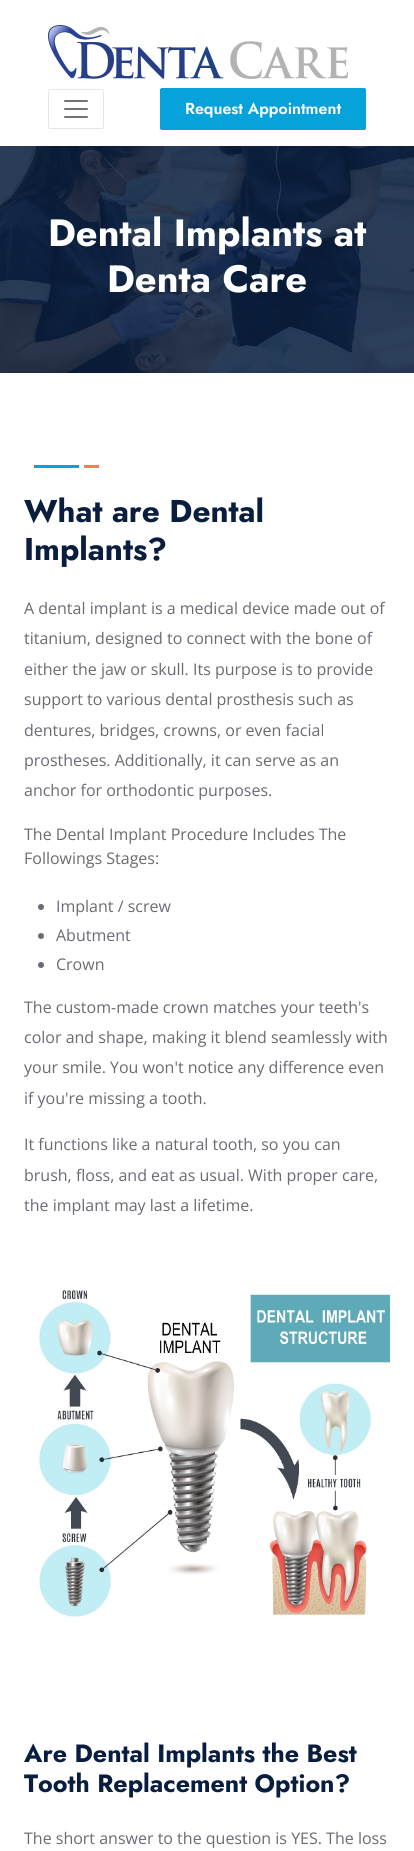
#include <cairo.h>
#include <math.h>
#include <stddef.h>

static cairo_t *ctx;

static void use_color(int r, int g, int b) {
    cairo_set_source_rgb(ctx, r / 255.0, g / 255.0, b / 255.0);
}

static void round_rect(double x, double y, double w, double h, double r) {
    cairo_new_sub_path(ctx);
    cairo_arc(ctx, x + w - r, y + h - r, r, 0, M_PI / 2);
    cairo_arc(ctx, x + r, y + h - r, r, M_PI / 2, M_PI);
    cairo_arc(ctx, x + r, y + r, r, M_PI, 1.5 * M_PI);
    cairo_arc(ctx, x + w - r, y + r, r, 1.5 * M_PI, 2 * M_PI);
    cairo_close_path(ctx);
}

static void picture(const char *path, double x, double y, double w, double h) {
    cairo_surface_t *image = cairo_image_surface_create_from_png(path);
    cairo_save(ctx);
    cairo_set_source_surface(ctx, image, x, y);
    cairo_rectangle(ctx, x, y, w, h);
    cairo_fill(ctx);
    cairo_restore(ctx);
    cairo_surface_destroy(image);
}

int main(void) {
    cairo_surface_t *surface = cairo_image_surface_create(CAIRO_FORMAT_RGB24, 414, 1851);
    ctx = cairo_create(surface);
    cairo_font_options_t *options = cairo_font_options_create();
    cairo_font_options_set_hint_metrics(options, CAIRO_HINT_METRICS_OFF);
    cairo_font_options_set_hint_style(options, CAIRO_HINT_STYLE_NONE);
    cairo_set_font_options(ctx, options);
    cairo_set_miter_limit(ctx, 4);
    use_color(255, 255, 255);
    cairo_paint(ctx);
    picture("img1.png", 48, 25, 300, 54);
    round_rect(48.5, 89.5, 55, 39, 1.5);
    use_color(230, 230, 230);
    cairo_set_line_width(ctx, 1);
    cairo_stroke(ctx);
    picture("img2.png", 64, 100, 24, 18);
    use_color(6, 163, 218);
    round_rect(160.5, 88.5, 205, 41, 1.5);
    cairo_fill_preserve(ctx);
    cairo_stroke(ctx);
    cairo_select_font_face(ctx, "Jost SemiBold", CAIRO_FONT_SLANT_NORMAL, CAIRO_FONT_WEIGHT_NORMAL);
    cairo_set_font_size(ctx, 16);
    use_color(255, 255, 255);
    cairo_move_to(ctx, 185, 114);
    cairo_show_text(ctx, "Request Appointment");
    picture("img3.png", 0, 146, 414, 227);
    cairo_select_font_face(ctx, "Jost", CAIRO_FONT_SLANT_NORMAL, CAIRO_FONT_WEIGHT_BOLD);
    cairo_set_font_size(ctx, 38);
    cairo_move_to(ctx, 48, 246);
    cairo_show_text(ctx, "Dental Implants at");
    cairo_move_to(ctx, 107, 292);
    cairo_show_text(ctx, "Denta Care");
    use_color(6, 163, 218);
    cairo_rectangle(ctx, 34, 465, 45, 3);
    cairo_fill(ctx);
    use_color(245, 126, 87);
    cairo_rectangle(ctx, 84, 465, 15, 3);
    cairo_fill(ctx);
    cairo_set_font_size(ctx, 31.5);
    use_color(9, 30, 62);
    cairo_move_to(ctx, 24, 522);
    cairo_show_text(ctx, "What are Dental");
    cairo_move_to(ctx, 24, 560);
    cairo_show_text(ctx, "Implants?");
    cairo_select_font_face(ctx, "Open Sans", CAIRO_FONT_SLANT_NORMAL, CAIRO_FONT_WEIGHT_NORMAL);
    cairo_set_font_size(ctx, 16);
    use_color(107, 106, 117);
    cairo_move_to(ctx, 24, 614);
    cairo_show_text(ctx, "A dental implant is a medical device made out of");
    cairo_move_to(ctx, 24, 644);
    cairo_show_text(ctx, "titanium, designed to connect with the bone of");
    cairo_move_to(ctx, 24, 675);
    cairo_show_text(ctx, "either the jaw or skull. Its purpose is to provide");
    cairo_move_to(ctx, 24, 705);
    cairo_show_text(ctx, "support to various dental prosthesis such as");
    cairo_move_to(ctx, 24, 736);
    cairo_show_text(ctx, "dentures, bridges, crowns, or even facial");
    cairo_move_to(ctx, 24, 766);
    cairo_show_text(ctx, "prostheses. Additionally, it can serve as an");
    cairo_move_to(ctx, 24, 796);
    cairo_show_text(ctx, "anchor for orthodontic purposes.");
    cairo_move_to(ctx, 24, 840);
    cairo_show_text(ctx, "The Dental Implant Procedure Includes The");
    cairo_move_to(ctx, 24, 864);
    cairo_show_text(ctx, "Followings Stages:");
    cairo_new_path(ctx);
    cairo_arc(ctx, 41, 907, 3, 0, 2 * M_PI);
    cairo_fill(ctx);
    cairo_move_to(ctx, 56, 912);
    cairo_show_text(ctx, "Implant / screw");
    cairo_new_path(ctx);
    cairo_arc(ctx, 41, 936, 3, 0, 2 * M_PI);
    cairo_fill(ctx);
    cairo_move_to(ctx, 56, 941);
    cairo_show_text(ctx, "Abutment");
    cairo_new_path(ctx);
    cairo_arc(ctx, 41, 965, 3, 0, 2 * M_PI);
    cairo_fill(ctx);
    cairo_move_to(ctx, 56, 970);
    cairo_show_text(ctx, "Crown");
    cairo_move_to(ctx, 24, 1013);
    cairo_show_text(ctx, "The custom-made crown matches your teeth's");
    cairo_move_to(ctx, 24, 1043);
    cairo_show_text(ctx, "color and shape, making it blend seamlessly with");
    cairo_move_to(ctx, 24, 1073);
    cairo_show_text(ctx, "your smile. You won't notice any difference even");
    cairo_move_to(ctx, 24, 1104);
    cairo_show_text(ctx, "if you're missing a tooth.");
    cairo_move_to(ctx, 24, 1150);
    cairo_show_text(ctx, "It functions like a natural tooth, so you can");
    cairo_move_to(ctx, 24, 1181);
    cairo_show_text(ctx, "brush, floss, and eat as usual. With proper care,");
    cairo_move_to(ctx, 24, 1211);
    cairo_show_text(ctx, "the implant may last a lifetime.");
    picture("img4.png", 39, 1290, 351, 327);
    cairo_select_font_face(ctx, "Jost", CAIRO_FONT_SLANT_NORMAL, CAIRO_FONT_WEIGHT_BOLD);
    cairo_set_font_size(ctx, 25);
    use_color(9, 30, 62);
    cairo_move_to(ctx, 24, 1762);
    cairo_show_text(ctx, "Are Dental Implants the Best");
    cairo_move_to(ctx, 24, 1792);
    cairo_show_text(ctx, "Tooth Replacement Option?");
    cairo_select_font_face(ctx, "Open Sans", CAIRO_FONT_SLANT_NORMAL, CAIRO_FONT_WEIGHT_NORMAL);
    cairo_set_font_size(ctx, 16);
    use_color(107, 106, 117);
    cairo_move_to(ctx, 24, 1844);
    cairo_show_text(ctx, "The short answer to the question is YES. The loss");
    cairo_surface_write_to_png(surface, "result.png");
    cairo_font_options_destroy(options);
    cairo_destroy(ctx);
    cairo_surface_destroy(surface);
    return 0;
}
